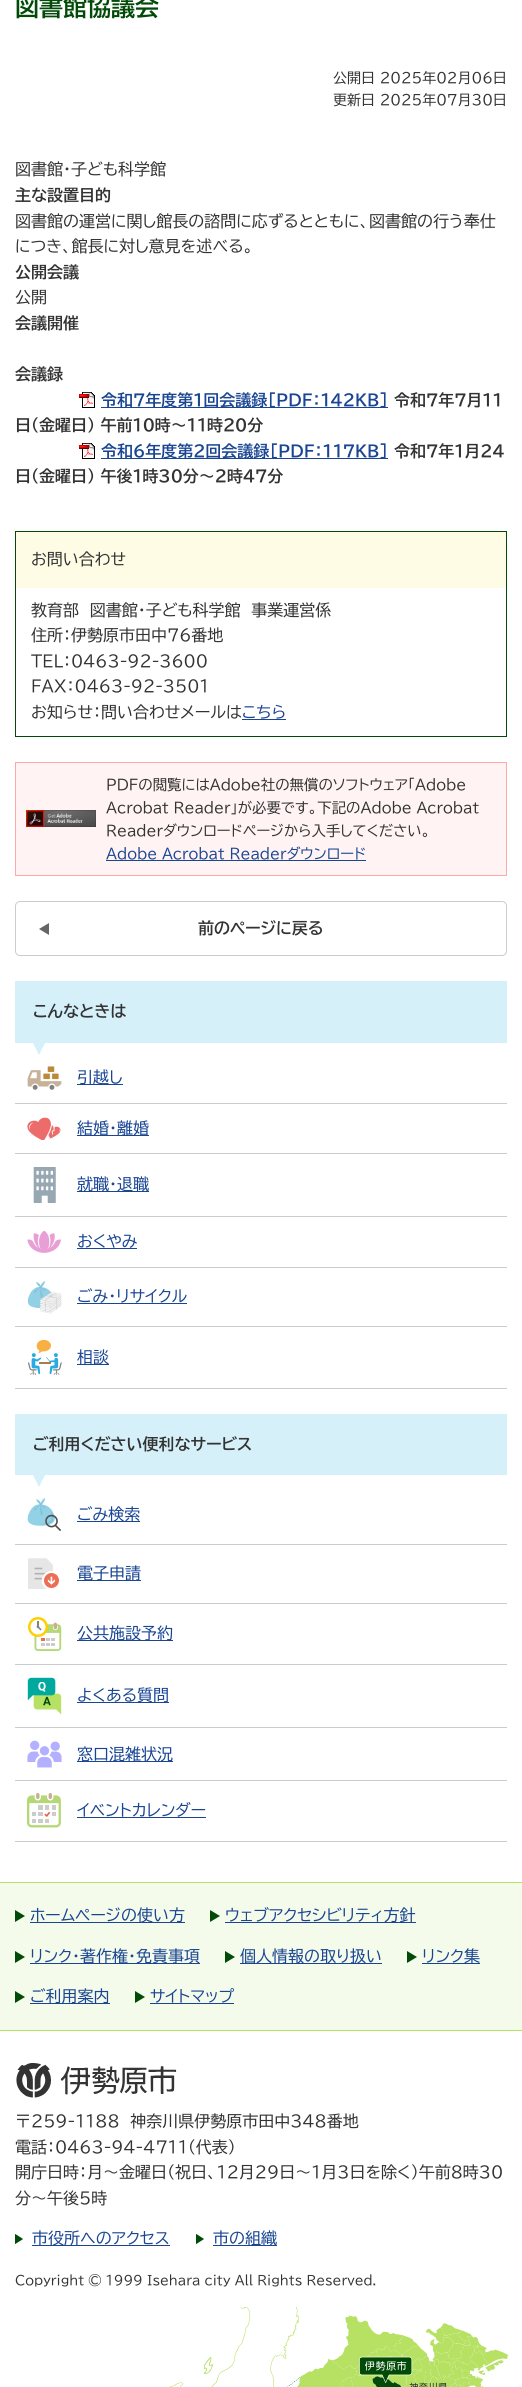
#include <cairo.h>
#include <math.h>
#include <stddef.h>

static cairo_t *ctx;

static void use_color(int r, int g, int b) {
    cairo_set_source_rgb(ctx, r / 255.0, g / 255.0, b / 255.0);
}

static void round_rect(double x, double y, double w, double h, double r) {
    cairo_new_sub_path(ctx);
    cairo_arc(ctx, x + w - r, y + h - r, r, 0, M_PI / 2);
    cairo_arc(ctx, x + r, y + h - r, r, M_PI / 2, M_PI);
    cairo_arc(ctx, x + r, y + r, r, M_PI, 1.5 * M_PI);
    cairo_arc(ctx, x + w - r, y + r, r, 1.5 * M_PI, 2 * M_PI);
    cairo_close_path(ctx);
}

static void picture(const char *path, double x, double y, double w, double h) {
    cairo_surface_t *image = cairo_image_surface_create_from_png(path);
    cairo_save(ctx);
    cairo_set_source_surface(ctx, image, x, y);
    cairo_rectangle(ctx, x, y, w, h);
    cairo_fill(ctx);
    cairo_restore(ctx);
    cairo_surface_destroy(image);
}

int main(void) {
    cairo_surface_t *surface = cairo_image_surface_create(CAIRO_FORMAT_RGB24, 522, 2387);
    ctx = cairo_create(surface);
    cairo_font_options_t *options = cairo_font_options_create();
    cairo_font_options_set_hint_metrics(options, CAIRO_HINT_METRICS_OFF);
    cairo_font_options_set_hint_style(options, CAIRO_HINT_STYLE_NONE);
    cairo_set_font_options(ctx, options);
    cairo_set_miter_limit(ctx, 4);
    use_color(255, 255, 255);
    cairo_paint(ctx);
    cairo_select_font_face(ctx, "BIZ UDPGothic", CAIRO_FONT_SLANT_NORMAL, CAIRO_FONT_WEIGHT_BOLD);
    cairo_set_font_size(ctx, 24);
    use_color(1, 74, 7);
    cairo_move_to(ctx, 15, 16);
    cairo_show_text(ctx, "図書館協議会");
    cairo_select_font_face(ctx, "BIZ UDPGothic", CAIRO_FONT_SLANT_NORMAL, CAIRO_FONT_WEIGHT_NORMAL);
    cairo_set_font_size(ctx, 14);
    use_color(51, 51, 51);
    cairo_move_to(ctx, 333, 83);
    cairo_show_text(ctx, "公開日 2025年02月06日");
    cairo_move_to(ctx, 333, 105);
    cairo_show_text(ctx, "更新日 2025年07月30日");
    cairo_set_font_size(ctx, 16);
    cairo_move_to(ctx, 15, 175);
    cairo_show_text(ctx, "図書館・子ども科学館");
    cairo_select_font_face(ctx, "BIZ UDPGothic", CAIRO_FONT_SLANT_NORMAL, CAIRO_FONT_WEIGHT_BOLD);
    cairo_move_to(ctx, 15, 201);
    cairo_show_text(ctx, "主な設置目的");
    cairo_select_font_face(ctx, "BIZ UDPGothic", CAIRO_FONT_SLANT_NORMAL, CAIRO_FONT_WEIGHT_NORMAL);
    cairo_move_to(ctx, 15, 227);
    cairo_show_text(ctx, "図書館の運営に関し館長の諮問に応ずるとともに、図書館の行う奉仕");
    cairo_move_to(ctx, 15, 252);
    cairo_show_text(ctx, "につき、館長に対し意見を述べる。");
    cairo_select_font_face(ctx, "BIZ UDPGothic", CAIRO_FONT_SLANT_NORMAL, CAIRO_FONT_WEIGHT_BOLD);
    cairo_move_to(ctx, 15, 278);
    cairo_show_text(ctx, "公開会議");
    cairo_select_font_face(ctx, "BIZ UDPGothic", CAIRO_FONT_SLANT_NORMAL, CAIRO_FONT_WEIGHT_NORMAL);
    cairo_move_to(ctx, 15, 303);
    cairo_show_text(ctx, "公開");
    cairo_select_font_face(ctx, "BIZ UDPGothic", CAIRO_FONT_SLANT_NORMAL, CAIRO_FONT_WEIGHT_BOLD);
    cairo_move_to(ctx, 15, 329);
    cairo_show_text(ctx, "会議開催");
    cairo_move_to(ctx, 15, 380);
    cairo_show_text(ctx, "会議録");
    picture("img1.png", 79, 392, 16, 16);
    use_color(25, 69, 147);
    cairo_rectangle(ctx, 101, 407, 287, 1);
    cairo_fill(ctx);
    cairo_move_to(ctx, 101, 406);
    cairo_show_text(ctx, "令和7年度第1回会議録[PDF：142KB]");
    use_color(51, 51, 51);
    cairo_move_to(ctx, 394, 406);
    cairo_show_text(ctx, "令和7年7月11");
    cairo_move_to(ctx, 15, 431);
    cairo_show_text(ctx, "日(金曜日) 午前10時～11時20分");
    picture("img1.png", 79, 443, 16, 16);
    use_color(25, 69, 147);
    cairo_rectangle(ctx, 101, 458, 287, 1);
    cairo_fill(ctx);
    cairo_move_to(ctx, 101, 457);
    cairo_show_text(ctx, "令和6年度第2回会議録[PDF：117KB]");
    use_color(51, 51, 51);
    cairo_move_to(ctx, 394, 457);
    cairo_show_text(ctx, "令和7年1月24");
    cairo_move_to(ctx, 15, 482);
    cairo_show_text(ctx, "日(金曜日） 午後1時30分～2時47分");
    cairo_rectangle(ctx, 15.5, 531.5, 491, 205);
    use_color(1, 74, 7);
    cairo_set_line_width(ctx, 1);
    cairo_stroke(ctx);
    use_color(254, 252, 229);
    cairo_rectangle(ctx, 16, 532, 490, 56);
    cairo_fill(ctx);
    cairo_select_font_face(ctx, "BIZ UDPGothic", CAIRO_FONT_SLANT_NORMAL, CAIRO_FONT_WEIGHT_NORMAL);
    use_color(51, 51, 51);
    cairo_move_to(ctx, 31, 565);
    cairo_show_text(ctx, "お問い合わせ");
    cairo_move_to(ctx, 31, 616);
    cairo_show_text(ctx, "教育部　図書館・子ども科学館　事業運営係");
    cairo_move_to(ctx, 31, 641);
    cairo_show_text(ctx, "住所：伊勢原市田中76番地");
    cairo_move_to(ctx, 31, 667);
    cairo_show_text(ctx, "TEL：0463-92-3600");
    cairo_move_to(ctx, 31, 692);
    cairo_show_text(ctx, "FAX：0463-92-3501");
    cairo_move_to(ctx, 31, 718);
    cairo_show_text(ctx, "お知らせ：問い合わせメールは");
    use_color(25, 69, 147);
    cairo_move_to(ctx, 242, 718);
    cairo_show_text(ctx, "こちら");
    cairo_rectangle(ctx, 242, 719, 44, 1);
    cairo_fill(ctx);
    use_color(255, 243, 243);
    cairo_rectangle(ctx, 16, 763, 490, 112);
    cairo_fill(ctx);
    picture("img2.png", 26, 810, 70, 17);
    cairo_rectangle(ctx, 15.5, 762.5, 491, 113);
    use_color(255, 170, 170);
    cairo_stroke(ctx);
    cairo_set_font_size(ctx, 14.4);
    use_color(51, 51, 51);
    cairo_move_to(ctx, 106, 790);
    cairo_show_text(ctx, "PDFの閲覧にはAdobe社の無償のソフトウェア「Adobe");
    cairo_move_to(ctx, 106, 813);
    cairo_show_text(ctx, "Acrobat Reader」が必要です。下記のAdobe Acrobat");
    cairo_move_to(ctx, 106, 836);
    cairo_show_text(ctx, "Readerダウンロードページから入手してください。");
    use_color(25, 69, 147);
    cairo_move_to(ctx, 106, 859);
    cairo_show_text(ctx, "Adobe Acrobat Readerダウンロード");
    cairo_rectangle(ctx, 106, 860, 260, 1);
    cairo_fill(ctx);
    use_color(102, 102, 102);
    cairo_new_path(ctx);
    cairo_move_to(ctx, 49, 935);
    cairo_line_to(ctx, 39, 929);
    cairo_line_to(ctx, 49, 923);
    cairo_close_path(ctx);
    cairo_fill(ctx);
    round_rect(15.5, 901.5, 491, 54, 4.5);
    use_color(204, 204, 204);
    cairo_stroke(ctx);
    cairo_select_font_face(ctx, "BIZ UDPGothic", CAIRO_FONT_SLANT_NORMAL, CAIRO_FONT_WEIGHT_BOLD);
    cairo_set_font_size(ctx, 16);
    use_color(51, 51, 51);
    cairo_move_to(ctx, 198, 934);
    cairo_show_text(ctx, "前のページに戻る");
    use_color(214, 240, 250);
    cairo_rectangle(ctx, 15, 981, 492, 62);
    cairo_fill(ctx);
    use_color(51, 51, 51);
    cairo_move_to(ctx, 33, 1017);
    cairo_show_text(ctx, "こんなときは");
    use_color(214, 240, 250);
    cairo_new_path(ctx);
    cairo_move_to(ctx, 33, 1043);
    cairo_line_to(ctx, 45, 1043);
    cairo_line_to(ctx, 39, 1055);
    cairo_close_path(ctx);
    cairo_fill(ctx);
    use_color(204, 204, 204);
    cairo_rectangle(ctx, 15, 1103, 492, 1);
    cairo_fill(ctx);
    picture("img3.png", 27, 1066, 35, 24);
    use_color(25, 69, 147);
    cairo_rectangle(ctx, 77, 1084, 46, 1);
    cairo_fill(ctx);
    cairo_select_font_face(ctx, "BIZ UDPGothic", CAIRO_FONT_SLANT_NORMAL, CAIRO_FONT_WEIGHT_NORMAL);
    cairo_move_to(ctx, 77, 1083);
    cairo_show_text(ctx, "引越し");
    use_color(204, 204, 204);
    cairo_rectangle(ctx, 15, 1153, 492, 1);
    cairo_fill(ctx);
    picture("img4.png", 27, 1117, 34, 23);
    use_color(25, 69, 147);
    cairo_rectangle(ctx, 77, 1135, 72, 1);
    cairo_fill(ctx);
    cairo_move_to(ctx, 77, 1134);
    cairo_show_text(ctx, "結婚・離婚");
    use_color(204, 204, 204);
    cairo_rectangle(ctx, 15, 1216, 492, 1);
    cairo_fill(ctx);
    picture("img5.png", 33, 1167, 23, 36);
    use_color(25, 69, 147);
    cairo_rectangle(ctx, 77, 1191, 72, 1);
    cairo_fill(ctx);
    cairo_move_to(ctx, 77, 1190);
    cairo_show_text(ctx, "就職・退職");
    use_color(204, 204, 204);
    cairo_rectangle(ctx, 15, 1267, 492, 1);
    cairo_fill(ctx);
    picture("img6.png", 27, 1230, 34, 23);
    use_color(25, 69, 147);
    cairo_move_to(ctx, 77, 1247);
    cairo_show_text(ctx, "おくやみ");
    cairo_rectangle(ctx, 77, 1248, 60, 1);
    cairo_fill(ctx);
    use_color(204, 204, 204);
    cairo_rectangle(ctx, 15, 1326, 492, 1);
    cairo_fill(ctx);
    picture("img7.png", 27, 1280, 35, 34);
    use_color(25, 69, 147);
    cairo_move_to(ctx, 77, 1302);
    cairo_show_text(ctx, "ごみ・リサイクル");
    cairo_rectangle(ctx, 77, 1303, 110, 1);
    cairo_fill(ctx);
    use_color(204, 204, 204);
    cairo_rectangle(ctx, 15, 1388, 492, 1);
    cairo_fill(ctx);
    picture("img8.png", 28, 1339, 34, 36);
    use_color(25, 69, 147);
    cairo_rectangle(ctx, 77, 1364, 32, 1);
    cairo_fill(ctx);
    cairo_move_to(ctx, 77, 1363);
    cairo_show_text(ctx, "相談");
    use_color(214, 240, 250);
    cairo_rectangle(ctx, 15, 1414, 492, 61);
    cairo_fill(ctx);
    cairo_select_font_face(ctx, "BIZ UDPGothic", CAIRO_FONT_SLANT_NORMAL, CAIRO_FONT_WEIGHT_BOLD);
    use_color(51, 51, 51);
    cairo_move_to(ctx, 33, 1450);
    cairo_show_text(ctx, "ご利用ください便利なサービス");
    use_color(214, 240, 250);
    cairo_new_path(ctx);
    cairo_move_to(ctx, 33, 1475);
    cairo_line_to(ctx, 45, 1475);
    cairo_line_to(ctx, 39, 1487);
    cairo_close_path(ctx);
    cairo_fill(ctx);
    use_color(204, 204, 204);
    cairo_rectangle(ctx, 15, 1544, 492, 1);
    cairo_fill(ctx);
    picture("img9.png", 27, 1498, 35, 34);
    use_color(25, 69, 147);
    cairo_rectangle(ctx, 77, 1521, 63, 1);
    cairo_fill(ctx);
    cairo_select_font_face(ctx, "BIZ UDPGothic", CAIRO_FONT_SLANT_NORMAL, CAIRO_FONT_WEIGHT_NORMAL);
    cairo_move_to(ctx, 77, 1520);
    cairo_show_text(ctx, "ごみ検索");
    use_color(204, 204, 204);
    cairo_rectangle(ctx, 15, 1603, 492, 1);
    cairo_fill(ctx);
    picture("img10.png", 28, 1558, 31, 31);
    use_color(25, 69, 147);
    cairo_rectangle(ctx, 77, 1580, 64, 1);
    cairo_fill(ctx);
    cairo_move_to(ctx, 77, 1579);
    cairo_show_text(ctx, "電子申請");
    use_color(204, 204, 204);
    cairo_rectangle(ctx, 15, 1664, 492, 1);
    cairo_fill(ctx);
    picture("img11.png", 28, 1617, 34, 34);
    use_color(25, 69, 147);
    cairo_rectangle(ctx, 77, 1640, 96, 1);
    cairo_fill(ctx);
    cairo_move_to(ctx, 77, 1639);
    cairo_show_text(ctx, "公共施設予約");
    use_color(204, 204, 204);
    cairo_rectangle(ctx, 15, 1727, 492, 1);
    cairo_fill(ctx);
    picture("img12.png", 27, 1677, 35, 38);
    use_color(25, 69, 147);
    cairo_rectangle(ctx, 77, 1702, 92, 1);
    cairo_fill(ctx);
    cairo_move_to(ctx, 77, 1701);
    cairo_show_text(ctx, "よくある質問");
    use_color(204, 204, 204);
    cairo_rectangle(ctx, 15, 1780, 492, 1);
    cairo_fill(ctx);
    picture("img13.png", 27, 1740, 35, 28);
    use_color(25, 69, 147);
    cairo_rectangle(ctx, 77, 1761, 96, 1);
    cairo_fill(ctx);
    cairo_move_to(ctx, 77, 1760);
    cairo_show_text(ctx, "窓口混雑状況");
    use_color(204, 204, 204);
    cairo_rectangle(ctx, 15, 1841, 492, 1);
    cairo_fill(ctx);
    picture("img14.png", 27, 1793, 34, 35);
    use_color(25, 69, 147);
    cairo_move_to(ctx, 77, 1816);
    cairo_show_text(ctx, "イベントカレンダー");
    cairo_rectangle(ctx, 77, 1817, 129, 1);
    cairo_fill(ctx);
    use_color(245, 251, 234);
    cairo_rectangle(ctx, 0, 1883, 522, 147);
    cairo_fill(ctx);
    use_color(182, 225, 99);
    cairo_rectangle(ctx, 0, 1882, 522, 1);
    cairo_fill(ctx);
    cairo_rectangle(ctx, 0, 2030, 522, 1);
    cairo_fill(ctx);
    use_color(1, 74, 7);
    cairo_new_path(ctx);
    cairo_move_to(ctx, 15, 1910);
    cairo_line_to(ctx, 25, 1916);
    cairo_line_to(ctx, 15, 1922);
    cairo_close_path(ctx);
    cairo_fill(ctx);
    use_color(25, 69, 147);
    cairo_rectangle(ctx, 30, 1922, 155, 1);
    cairo_fill(ctx);
    cairo_move_to(ctx, 30, 1921);
    cairo_show_text(ctx, "ホームページの使い方");
    use_color(1, 74, 7);
    cairo_new_path(ctx);
    cairo_move_to(ctx, 210, 1910);
    cairo_line_to(ctx, 220, 1916);
    cairo_line_to(ctx, 210, 1922);
    cairo_close_path(ctx);
    cairo_fill(ctx);
    use_color(25, 69, 147);
    cairo_rectangle(ctx, 225, 1922, 191, 1);
    cairo_fill(ctx);
    cairo_move_to(ctx, 225, 1921);
    cairo_show_text(ctx, "ウェブアクセシビリティ方針");
    use_color(1, 74, 7);
    cairo_new_path(ctx);
    cairo_move_to(ctx, 15, 1951);
    cairo_line_to(ctx, 25, 1957);
    cairo_line_to(ctx, 15, 1963);
    cairo_close_path(ctx);
    cairo_fill(ctx);
    use_color(25, 69, 147);
    cairo_rectangle(ctx, 30, 1963, 170, 1);
    cairo_fill(ctx);
    cairo_move_to(ctx, 30, 1962);
    cairo_show_text(ctx, "リンク・著作権・免責事項");
    use_color(1, 74, 7);
    cairo_new_path(ctx);
    cairo_move_to(ctx, 225, 1951);
    cairo_line_to(ctx, 235, 1957);
    cairo_line_to(ctx, 225, 1963);
    cairo_close_path(ctx);
    cairo_fill(ctx);
    use_color(25, 69, 147);
    cairo_rectangle(ctx, 240, 1963, 142, 1);
    cairo_fill(ctx);
    cairo_move_to(ctx, 240, 1962);
    cairo_show_text(ctx, "個人情報の取り扱い");
    use_color(1, 74, 7);
    cairo_new_path(ctx);
    cairo_move_to(ctx, 407, 1951);
    cairo_line_to(ctx, 417, 1957);
    cairo_line_to(ctx, 407, 1963);
    cairo_close_path(ctx);
    cairo_fill(ctx);
    use_color(25, 69, 147);
    cairo_rectangle(ctx, 422, 1963, 58, 1);
    cairo_fill(ctx);
    cairo_move_to(ctx, 422, 1962);
    cairo_show_text(ctx, "リンク集");
    use_color(1, 74, 7);
    cairo_new_path(ctx);
    cairo_move_to(ctx, 15, 1991);
    cairo_line_to(ctx, 25, 1997);
    cairo_line_to(ctx, 15, 2003);
    cairo_close_path(ctx);
    cairo_fill(ctx);
    use_color(25, 69, 147);
    cairo_rectangle(ctx, 30, 2003, 80, 1);
    cairo_fill(ctx);
    cairo_move_to(ctx, 30, 2002);
    cairo_show_text(ctx, "ご利用案内");
    use_color(1, 74, 7);
    cairo_new_path(ctx);
    cairo_move_to(ctx, 135, 1991);
    cairo_line_to(ctx, 145, 1997);
    cairo_line_to(ctx, 135, 2003);
    cairo_close_path(ctx);
    cairo_fill(ctx);
    use_color(25, 69, 147);
    cairo_move_to(ctx, 150, 2002);
    cairo_show_text(ctx, "サイトマップ");
    cairo_rectangle(ctx, 150, 2003, 84, 1);
    cairo_fill(ctx);
    picture("img15.png", 169, 2307, 340, 80);
    picture("img16.png", 16, 2063, 161, 35);
    use_color(51, 51, 51);
    cairo_move_to(ctx, 15, 2127);
    cairo_show_text(ctx, "〒259-1188　神奈川県伊勢原市田中348番地");
    cairo_move_to(ctx, 15, 2153);
    cairo_show_text(ctx, "電話：0463-94-4711（代表）");
    cairo_move_to(ctx, 15, 2178);
    cairo_show_text(ctx, "開庁日時：月～金曜日（祝日、12月29日～1月3日を除く）午前8時30");
    cairo_move_to(ctx, 15, 2204);
    cairo_show_text(ctx, "分～午後5時");
    picture("img17.png", 15, 2234, 8, 10);
    use_color(25, 69, 147);
    cairo_rectangle(ctx, 32, 2245, 138, 1);
    cairo_fill(ctx);
    cairo_move_to(ctx, 32, 2244);
    cairo_show_text(ctx, "市役所へのアクセス");
    picture("img17.png", 196, 2234, 8, 10);
    cairo_rectangle(ctx, 213, 2245, 64, 1);
    cairo_fill(ctx);
    cairo_move_to(ctx, 213, 2244);
    cairo_show_text(ctx, "市の組織");
    cairo_set_font_size(ctx, 12.8);
    use_color(51, 51, 51);
    cairo_move_to(ctx, 15, 2285);
    cairo_show_text(ctx, "Copyright © 1999 Isehara city All Rights Reserved.");
    cairo_surface_write_to_png(surface, "result.png");
    cairo_font_options_destroy(options);
    cairo_destroy(ctx);
    cairo_surface_destroy(surface);
    return 0;
}
